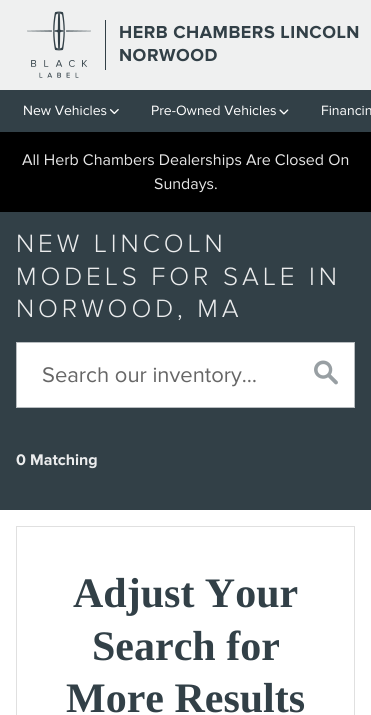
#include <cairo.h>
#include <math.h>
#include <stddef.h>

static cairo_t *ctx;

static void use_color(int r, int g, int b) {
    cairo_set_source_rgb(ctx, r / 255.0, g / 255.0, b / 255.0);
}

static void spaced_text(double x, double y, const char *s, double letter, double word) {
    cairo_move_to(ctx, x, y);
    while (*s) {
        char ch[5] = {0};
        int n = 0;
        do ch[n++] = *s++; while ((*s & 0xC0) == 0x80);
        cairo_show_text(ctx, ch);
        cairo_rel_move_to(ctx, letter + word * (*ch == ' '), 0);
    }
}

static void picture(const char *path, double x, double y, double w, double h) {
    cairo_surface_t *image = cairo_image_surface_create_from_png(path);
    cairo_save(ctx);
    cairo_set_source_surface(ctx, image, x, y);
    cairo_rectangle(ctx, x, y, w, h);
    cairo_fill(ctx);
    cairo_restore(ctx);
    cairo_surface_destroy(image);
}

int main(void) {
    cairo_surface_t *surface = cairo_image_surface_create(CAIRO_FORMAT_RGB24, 371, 715);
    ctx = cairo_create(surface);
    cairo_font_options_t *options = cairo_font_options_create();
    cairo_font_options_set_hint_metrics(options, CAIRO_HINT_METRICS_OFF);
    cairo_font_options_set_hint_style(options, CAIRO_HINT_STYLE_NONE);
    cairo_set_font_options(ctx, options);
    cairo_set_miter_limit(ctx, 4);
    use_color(255, 255, 255);
    cairo_paint(ctx);
    use_color(239, 240, 240);
    cairo_rectangle(ctx, 0, 0, 371, 90);
    cairo_fill(ctx);
    picture("img1.png", 27, 11, 64, 67);
    use_color(50, 64, 71);
    cairo_rectangle(ctx, 105, 20, 1, 50);
    cairo_fill(ctx);
    cairo_select_font_face(ctx, "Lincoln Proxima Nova", CAIRO_FONT_SLANT_NORMAL, CAIRO_FONT_WEIGHT_BOLD);
    cairo_set_font_size(ctx, 18);
    spaced_text(119, 38, "HERB CHAMBERS LINCOLN", 0.5, 0);
    spaced_text(119, 61, "NORWOOD", 0.5, 0);
    cairo_rectangle(ctx, 0, 90, 371, 42);
    cairo_fill(ctx);
    cairo_select_font_face(ctx, "Lincoln Proxima Nova", CAIRO_FONT_SLANT_NORMAL, CAIRO_FONT_WEIGHT_NORMAL);
    cairo_set_font_size(ctx, 14);
    use_color(255, 255, 255);
    cairo_move_to(ctx, 23, 115);
    cairo_show_text(ctx, "New Vehicles");
    picture("img2.png", 109, 109, 10, 6);
    cairo_move_to(ctx, 151, 115);
    cairo_show_text(ctx, "Pre-Owned Vehicles");
    picture("img3.png", 279, 109, 10, 6);
    cairo_move_to(ctx, 321, 115);
    cairo_show_text(ctx, "Financin");
    use_color(0, 0, 0);
    cairo_rectangle(ctx, 0, 132, 371, 80);
    cairo_fill(ctx);
    cairo_set_font_size(ctx, 16);
    use_color(230, 230, 230);
    cairo_move_to(ctx, 22, 165);
    cairo_show_text(ctx, "All Herb Chambers Dealerships Are Closed On");
    cairo_move_to(ctx, 154, 189);
    cairo_show_text(ctx, "Sundays.");
    use_color(50, 64, 71);
    cairo_rectangle(ctx, 0, 212, 371, 298);
    cairo_fill(ctx);
    cairo_select_font_face(ctx, "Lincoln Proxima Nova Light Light", CAIRO_FONT_SLANT_NORMAL, CAIRO_FONT_WEIGHT_NORMAL);
    cairo_set_font_size(ctx, 26);
    use_color(235, 236, 237);
    spaced_text(16, 252, "NEW LINCOLN", 3.9, 0);
    spaced_text(16, 285, "MODELS FOR SALE IN", 3.9, 0);
    spaced_text(16, 317, "NORWOOD, MA", 3.9, 0);
    use_color(255, 255, 255);
    cairo_rectangle(ctx, 16.5, 342.5, 338, 65);
    cairo_fill_preserve(ctx);
    use_color(184, 189, 192);
    cairo_set_line_width(ctx, 1);
    cairo_stroke(ctx);
    cairo_select_font_face(ctx, "Lincoln Proxima Nova", CAIRO_FONT_SLANT_NORMAL, CAIRO_FONT_WEIGHT_NORMAL);
    cairo_set_font_size(ctx, 22);
    use_color(102, 102, 102);
    cairo_move_to(ctx, 42, 382);
    cairo_show_text(ctx, "Search our inventory…");
    picture("img4.png", 314, 360, 24, 25);
    cairo_select_font_face(ctx, "Lincoln Proxima Nova", CAIRO_FONT_SLANT_NORMAL, CAIRO_FONT_WEIGHT_BOLD);
    cairo_set_font_size(ctx, 16);
    use_color(235, 236, 237);
    cairo_move_to(ctx, 16, 465);
    cairo_show_text(ctx, "0 Matching");
    cairo_rectangle(ctx, 16.5, 526.5, 338, 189);
    use_color(224, 224, 224);
    cairo_stroke(ctx);
    cairo_select_font_face(ctx, "Liberation Serif", CAIRO_FONT_SLANT_NORMAL, CAIRO_FONT_WEIGHT_BOLD);
    cairo_set_font_size(ctx, 42);
    use_color(50, 64, 71);
    cairo_move_to(ctx, 73, 607);
    cairo_show_text(ctx, "Adjust Your");
    cairo_move_to(ctx, 92, 660);
    cairo_show_text(ctx, "Search for");
    cairo_move_to(ctx, 66, 712);
    cairo_show_text(ctx, "More Results");
    cairo_surface_write_to_png(surface, "result.png");
    cairo_font_options_destroy(options);
    cairo_destroy(ctx);
    cairo_surface_destroy(surface);
    return 0;
}
